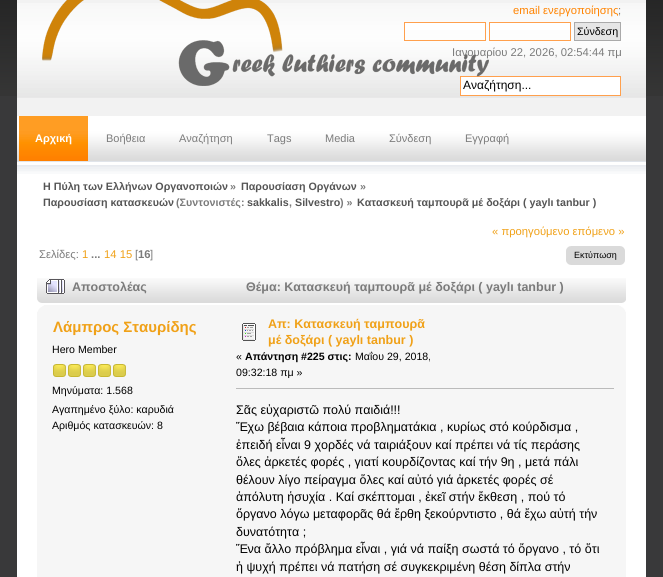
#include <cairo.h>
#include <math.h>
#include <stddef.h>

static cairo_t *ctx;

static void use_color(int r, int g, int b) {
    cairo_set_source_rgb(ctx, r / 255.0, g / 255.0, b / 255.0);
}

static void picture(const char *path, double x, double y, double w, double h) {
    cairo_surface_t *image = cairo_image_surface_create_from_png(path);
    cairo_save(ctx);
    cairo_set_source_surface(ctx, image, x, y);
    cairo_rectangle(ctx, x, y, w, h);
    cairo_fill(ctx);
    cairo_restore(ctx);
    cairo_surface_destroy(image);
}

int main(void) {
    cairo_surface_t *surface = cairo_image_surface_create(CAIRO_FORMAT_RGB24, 663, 577);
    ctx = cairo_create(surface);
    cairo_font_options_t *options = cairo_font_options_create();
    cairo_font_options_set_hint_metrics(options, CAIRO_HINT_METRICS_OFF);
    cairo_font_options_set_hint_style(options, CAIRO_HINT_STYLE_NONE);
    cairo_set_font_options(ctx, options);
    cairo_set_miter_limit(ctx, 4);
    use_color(57, 57, 58);
    cairo_paint(ctx);
    picture("img1.png", 0, 0, 663, 96);
    use_color(242, 242, 242);
    cairo_rectangle(ctx, 17, 0, 629, 116);
    cairo_fill(ctx);
    picture("img2.png", 17, 3, 629, 95);
    use_color(255, 255, 255);
    cairo_rectangle(ctx, 405, 23, 80, 7);
    cairo_fill(ctx);
    cairo_rectangle(ctx, 404.5, 22.5, 81, 18);
    use_color(255, 160, 77);
    cairo_set_line_width(ctx, 1);
    cairo_stroke(ctx);
    cairo_select_font_face(ctx, "Liberation Sans", CAIRO_FONT_SLANT_NORMAL, CAIRO_FONT_WEIGHT_NORMAL);
    cairo_set_font_size(ctx, 11.25);
    use_color(123, 123, 123);
    cairo_move_to(ctx, 452, 56);
    cairo_show_text(ctx, "Ιανουαρίου 22, 2026, 02:54:44 πμ");
    use_color(255, 255, 255);
    cairo_rectangle(ctx, 460.5, 76.5, 160, 19);
    cairo_fill_preserve(ctx);
    use_color(255, 160, 77);
    cairo_stroke(ctx);
    cairo_set_font_size(ctx, 12);
    use_color(0, 0, 0);
    cairo_move_to(ctx, 463, 89);
    cairo_show_text(ctx, "Αναζήτηση...");
    picture("img3.png", 42, 0, 447, 86);
    cairo_set_font_size(ctx, 11.25);
    use_color(255, 131, 0);
    cairo_move_to(ctx, 513, 14);
    cairo_show_text(ctx, "email ενεργοποίησης");
    use_color(123, 123, 123);
    cairo_move_to(ctx, 618, 14);
    cairo_show_text(ctx, ";");
    use_color(255, 255, 255);
    cairo_rectangle(ctx, 490, 23, 80, 7);
    cairo_fill(ctx);
    cairo_rectangle(ctx, 489.5, 22.5, 81, 18);
    use_color(255, 160, 77);
    cairo_stroke(ctx);
    use_color(230, 230, 230);
    cairo_rectangle(ctx, 574.5, 22.5, 46, 18);
    cairo_fill_preserve(ctx);
    use_color(170, 170, 170);
    cairo_stroke(ctx);
    cairo_set_font_size(ctx, 10.7);
    use_color(0, 0, 0);
    cairo_move_to(ctx, 577, 35);
    cairo_show_text(ctx, "Σύνδεση");
    picture("img4.png", 17, 116, 629, 45);
    picture("img5.png", 19, 116, 69, 45);
    cairo_select_font_face(ctx, "Liberation Sans", CAIRO_FONT_SLANT_NORMAL, CAIRO_FONT_WEIGHT_BOLD);
    cairo_set_font_size(ctx, 11);
    use_color(255, 255, 255);
    cairo_move_to(ctx, 35, 142);
    cairo_show_text(ctx, "Αρχική");
    cairo_select_font_face(ctx, "Liberation Sans", CAIRO_FONT_SLANT_NORMAL, CAIRO_FONT_WEIGHT_NORMAL);
    use_color(123, 123, 123);
    cairo_move_to(ctx, 106, 142);
    cairo_show_text(ctx, "Βοήθεια");
    cairo_move_to(ctx, 179, 142);
    cairo_show_text(ctx, "Αναζήτηση");
    cairo_move_to(ctx, 267, 142);
    cairo_show_text(ctx, "Tags");
    cairo_move_to(ctx, 325, 142);
    cairo_show_text(ctx, "Media");
    cairo_move_to(ctx, 389, 142);
    cairo_show_text(ctx, "Σύνδεση");
    cairo_move_to(ctx, 465, 142);
    cairo_show_text(ctx, "Εγγραφή");
    use_color(255, 255, 255);
    cairo_rectangle(ctx, 17, 174, 629, 403);
    cairo_fill(ctx);
    picture("img6.png", 17, 161, 629, 13);
    cairo_select_font_face(ctx, "Liberation Sans", CAIRO_FONT_SLANT_NORMAL, CAIRO_FONT_WEIGHT_BOLD);
    cairo_set_font_size(ctx, 10.7);
    use_color(85, 85, 85);
    cairo_move_to(ctx, 43, 190);
    cairo_show_text(ctx, "Η Πύλη των Ελλήνων Οργανοποιών");
    use_color(123, 123, 123);
    cairo_move_to(ctx, 230, 190);
    cairo_show_text(ctx, "»");
    use_color(85, 85, 85);
    cairo_move_to(ctx, 241, 190);
    cairo_show_text(ctx, "Παρουσίαση Οργάνων");
    use_color(123, 123, 123);
    cairo_move_to(ctx, 360, 190);
    cairo_show_text(ctx, "»");
    use_color(85, 85, 85);
    cairo_move_to(ctx, 43, 206);
    cairo_show_text(ctx, "Παρουσίαση κατασκευών");
    use_color(123, 123, 123);
    cairo_move_to(ctx, 176, 206);
    cairo_show_text(ctx, "(Συντονιστές:");
    use_color(85, 85, 85);
    cairo_move_to(ctx, 247, 206);
    cairo_show_text(ctx, "sakkalis");
    use_color(123, 123, 123);
    cairo_move_to(ctx, 289, 206);
    cairo_show_text(ctx, ",");
    use_color(85, 85, 85);
    cairo_move_to(ctx, 295, 206);
    cairo_show_text(ctx, "Silvestro");
    use_color(123, 123, 123);
    cairo_move_to(ctx, 340, 206);
    cairo_show_text(ctx, ") »");
    use_color(85, 85, 85);
    cairo_move_to(ctx, 357, 206);
    cairo_show_text(ctx, "Κατασκευή ταμπουρᾶ μέ δοξάρι ( yaylı tanbur )");
    cairo_select_font_face(ctx, "Liberation Sans", CAIRO_FONT_SLANT_NORMAL, CAIRO_FONT_WEIGHT_NORMAL);
    cairo_set_font_size(ctx, 11.25);
    use_color(240, 161, 24);
    cairo_move_to(ctx, 492, 235);
    cairo_show_text(ctx, "« προηγούμενο επόμενο »");
    use_color(123, 123, 123);
    cairo_move_to(ctx, 39, 258);
    cairo_show_text(ctx, "Σελίδες:");
    use_color(240, 161, 24);
    cairo_move_to(ctx, 82, 258);
    cairo_show_text(ctx, "1");
    cairo_select_font_face(ctx, "Liberation Sans", CAIRO_FONT_SLANT_NORMAL, CAIRO_FONT_WEIGHT_BOLD);
    use_color(123, 123, 123);
    cairo_move_to(ctx, 91, 258);
    cairo_show_text(ctx, "...");
    cairo_select_font_face(ctx, "Liberation Sans", CAIRO_FONT_SLANT_NORMAL, CAIRO_FONT_WEIGHT_NORMAL);
    use_color(240, 161, 24);
    cairo_move_to(ctx, 104, 258);
    cairo_show_text(ctx, "14 15");
    use_color(123, 123, 123);
    cairo_move_to(ctx, 135, 258);
    cairo_show_text(ctx, "[");
    cairo_select_font_face(ctx, "Liberation Sans", CAIRO_FONT_SLANT_NORMAL, CAIRO_FONT_WEIGHT_BOLD);
    cairo_move_to(ctx, 138, 258);
    cairo_show_text(ctx, "16");
    cairo_select_font_face(ctx, "Liberation Sans", CAIRO_FONT_SLANT_NORMAL, CAIRO_FONT_WEIGHT_NORMAL);
    cairo_move_to(ctx, 150, 258);
    cairo_show_text(ctx, "]");
    picture("img7.png", 566, 246, 51, 19);
    picture("img8.png", 617, 246, 8, 19);
    cairo_set_font_size(ctx, 9);
    use_color(0, 0, 0);
    cairo_move_to(ctx, 574, 258);
    cairo_show_text(ctx, "Εκτύπωση");
    picture("img9.png", 37, 278, 589, 25);
    picture("img10.png", 622, 300, 4, 3);
    picture("img11.png", 46, 279, 19, 15);
    cairo_select_font_face(ctx, "Liberation Sans", CAIRO_FONT_SLANT_NORMAL, CAIRO_FONT_WEIGHT_BOLD);
    cairo_set_font_size(ctx, 12.5);
    use_color(123, 123, 123);
    cairo_move_to(ctx, 72, 291);
    cairo_show_text(ctx, "Αποστολέας");
    cairo_move_to(ctx, 246, 291);
    cairo_show_text(ctx, "Θέμα: Κατασκευή ταμπουρᾶ μέ δοξάρι ( yaylı tanbur )");
    use_color(246, 246, 246);
    cairo_rectangle(ctx, 37, 305, 589, 272);
    cairo_fill(ctx);
    picture("img12.png", 37, 305, 7, 7);
    picture("img13.png", 619, 305, 7, 7);
    cairo_set_font_size(ctx, 15);
    use_color(240, 161, 24);
    cairo_move_to(ctx, 53, 332);
    cairo_show_text(ctx, "Λάμπρος Σταυρίδης");
    cairo_select_font_face(ctx, "Liberation Sans", CAIRO_FONT_SLANT_NORMAL, CAIRO_FONT_WEIGHT_NORMAL);
    cairo_set_font_size(ctx, 10.6);
    use_color(0, 0, 0);
    cairo_move_to(ctx, 52, 353);
    cairo_show_text(ctx, "Hero Member");
    picture("img14.png", 53, 364, 13, 13);
    picture("img14.png", 68, 364, 13, 13);
    picture("img14.png", 83, 364, 13, 13);
    picture("img14.png", 98, 364, 13, 13);
    picture("img14.png", 113, 364, 13, 13);
    cairo_move_to(ctx, 52, 394);
    cairo_show_text(ctx, "Μηνύματα: 1.568");
    cairo_move_to(ctx, 52, 413);
    cairo_show_text(ctx, "Αγαπημένο ξύλο: καρυδιά");
    cairo_move_to(ctx, 52, 429);
    cairo_show_text(ctx, "Αριθμός κατασκευών: 8");
    picture("img15.png", 242, 323, 14, 18);
    cairo_select_font_face(ctx, "Liberation Sans", CAIRO_FONT_SLANT_NORMAL, CAIRO_FONT_WEIGHT_BOLD);
    cairo_set_font_size(ctx, 12.5);
    use_color(240, 161, 24);
    cairo_move_to(ctx, 268, 328);
    cairo_show_text(ctx, "Απ: Κατασκευή ταμπουρᾶ");
    cairo_move_to(ctx, 268, 344);
    cairo_show_text(ctx, "μέ δοξάρι ( yaylı tanbur )");
    cairo_select_font_face(ctx, "Liberation Sans", CAIRO_FONT_SLANT_NORMAL, CAIRO_FONT_WEIGHT_NORMAL);
    cairo_set_font_size(ctx, 10.6);
    use_color(0, 0, 0);
    cairo_move_to(ctx, 236, 360);
    cairo_show_text(ctx, "«");
    cairo_select_font_face(ctx, "Liberation Sans", CAIRO_FONT_SLANT_NORMAL, CAIRO_FONT_WEIGHT_BOLD);
    cairo_move_to(ctx, 245, 360);
    cairo_show_text(ctx, "Απάντηση #225 στις:");
    cairo_select_font_face(ctx, "Liberation Sans", CAIRO_FONT_SLANT_NORMAL, CAIRO_FONT_WEIGHT_NORMAL);
    cairo_move_to(ctx, 355, 360);
    cairo_show_text(ctx, "Μαΐου 29, 2018,");
    cairo_move_to(ctx, 236, 376);
    cairo_show_text(ctx, "09:32:18 πμ »");
    use_color(187, 187, 187);
    cairo_rectangle(ctx, 236, 388, 378, 1);
    cairo_fill(ctx);
    cairo_set_font_size(ctx, 12.5);
    use_color(0, 0, 0);
    cairo_move_to(ctx, 236, 414);
    cairo_show_text(ctx, "Σᾶς εὐχαριστῶ πολύ παιδιά!!!");
    cairo_move_to(ctx, 236, 431);
    cairo_show_text(ctx, "Ἔχω βέβαια κάποια προβληματάκια , κυρίως στό κούρδισμα ,");
    cairo_move_to(ctx, 236, 449);
    cairo_show_text(ctx, "ἐπειδή εἶναι 9 χορδές νά ταιριάξουν καί πρέπει νά τίς περάσης");
    cairo_move_to(ctx, 236, 466);
    cairo_show_text(ctx, "ὅλες ἀρκετές φορές , γιατί κουρδίζοντας καί τήν 9η , μετά πάλι");
    cairo_move_to(ctx, 236, 484);
    cairo_show_text(ctx, "θέλουν λίγο πείραγμα ὅλες καί αὐτό γιά ἀρκετές φορές σέ");
    cairo_move_to(ctx, 236, 501);
    cairo_show_text(ctx, "ἀπόλυτη ἡσυχία . Καί σκέπτομαι , ἐκεῖ στήν ἔκθεση , πού τό");
    cairo_move_to(ctx, 236, 518);
    cairo_show_text(ctx, "ὄργανο λόγω μεταφορᾶς θά ἔρθη ξεκούρντιστο , θά ἔχω αὐτή τήν");
    cairo_move_to(ctx, 236, 536);
    cairo_show_text(ctx, "δυνατότητα ;");
    cairo_move_to(ctx, 236, 553);
    cairo_show_text(ctx, "Ἕνα ἄλλο πρόβλημα εἶναι , γιά νά παίξη σωστά τό ὄργανο , τό ὅτι");
    cairo_move_to(ctx, 236, 571);
    cairo_show_text(ctx, "ἡ ψυχή πρέπει νά πατήση σέ συγκεκριμένη θέση δίπλα στήν");
    cairo_surface_write_to_png(surface, "result.png");
    cairo_font_options_destroy(options);
    cairo_destroy(ctx);
    cairo_surface_destroy(surface);
    return 0;
}
